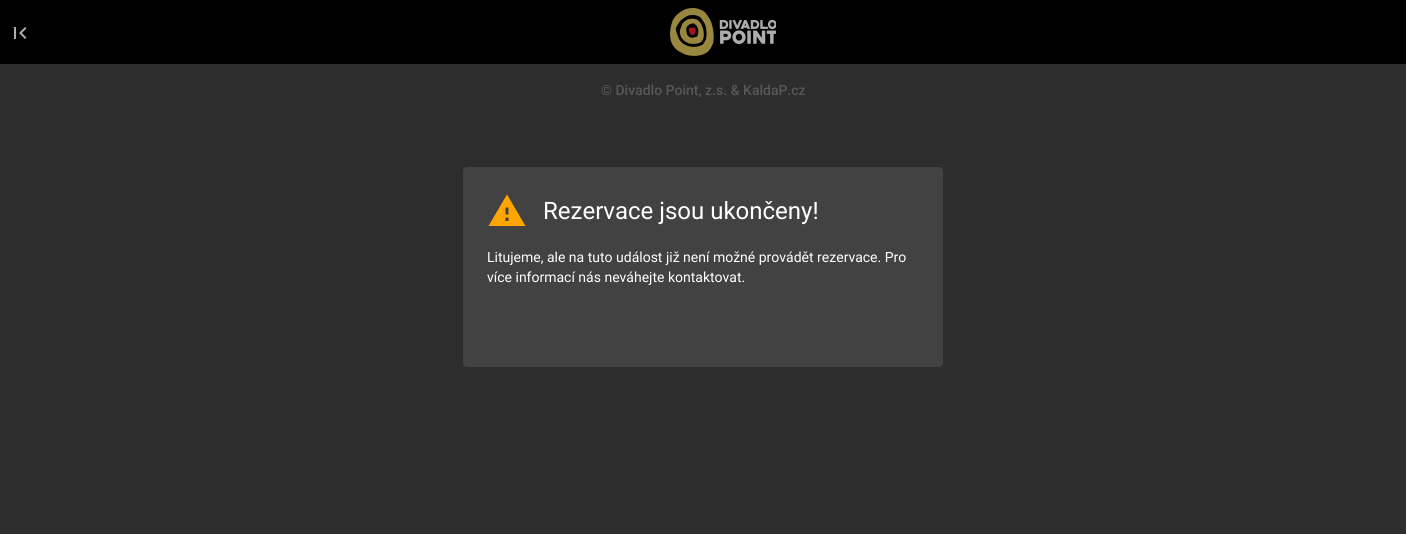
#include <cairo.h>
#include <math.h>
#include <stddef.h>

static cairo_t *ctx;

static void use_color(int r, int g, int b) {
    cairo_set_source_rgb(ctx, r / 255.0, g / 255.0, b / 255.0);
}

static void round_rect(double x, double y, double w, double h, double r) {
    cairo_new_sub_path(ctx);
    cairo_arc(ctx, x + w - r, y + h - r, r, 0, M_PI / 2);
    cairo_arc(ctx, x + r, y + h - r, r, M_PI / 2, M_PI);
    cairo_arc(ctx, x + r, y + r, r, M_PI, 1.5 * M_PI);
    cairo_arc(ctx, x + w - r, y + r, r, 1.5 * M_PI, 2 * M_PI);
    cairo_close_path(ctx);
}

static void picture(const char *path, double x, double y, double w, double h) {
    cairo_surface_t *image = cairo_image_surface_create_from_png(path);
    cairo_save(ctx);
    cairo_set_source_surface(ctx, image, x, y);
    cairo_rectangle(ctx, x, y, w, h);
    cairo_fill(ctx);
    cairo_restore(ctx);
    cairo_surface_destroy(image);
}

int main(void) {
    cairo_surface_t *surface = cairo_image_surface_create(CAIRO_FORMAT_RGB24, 1406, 534);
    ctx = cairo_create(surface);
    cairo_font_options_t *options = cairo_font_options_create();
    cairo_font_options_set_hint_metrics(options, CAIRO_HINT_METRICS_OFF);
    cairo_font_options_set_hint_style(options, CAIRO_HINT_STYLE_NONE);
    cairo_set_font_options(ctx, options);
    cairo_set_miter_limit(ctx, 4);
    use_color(0, 0, 0);
    cairo_paint(ctx);
    picture("img1.png", 14, 27, 13, 12);
    picture("img2.png", 670, 8, 106, 48);
    use_color(45, 45, 45);
    cairo_rectangle(ctx, 0, 64, 1406, 470);
    cairo_fill(ctx);
    cairo_select_font_face(ctx, "Roboto Medium", CAIRO_FONT_SLANT_NORMAL, CAIRO_FONT_WEIGHT_NORMAL);
    cairo_set_font_size(ctx, 14);
    use_color(87, 87, 87);
    cairo_move_to(ctx, 601, 95);
    cairo_show_text(ctx, "© Divadlo Point, z.s. & KaldaP.cz");
    use_color(66, 66, 66);
    round_rect(463, 167, 480, 200, 4);
    cairo_fill(ctx);
    use_color(255, 165, 0);
    cairo_new_path(ctx);
    cairo_move_to(ctx, 508.5, 214.5);
    cairo_line_to(ctx, 508.5, 207.5);
    cairo_line_to(ctx, 505.5, 207.5);
    cairo_line_to(ctx, 505.5, 214.5);
    cairo_close_path(ctx);
    cairo_move_to(ctx, 508.5, 221);
    cairo_line_to(ctx, 508.5, 217.5);
    cairo_line_to(ctx, 505.5, 217.5);
    cairo_line_to(ctx, 505.5, 221);
    cairo_close_path(ctx);
    cairo_move_to(ctx, 488.5, 226);
    cairo_line_to(ctx, 507, 194.5);
    cairo_line_to(ctx, 525.5, 226);
    cairo_close_path(ctx);
    cairo_fill(ctx);
    cairo_select_font_face(ctx, "Roboto", CAIRO_FONT_SLANT_NORMAL, CAIRO_FONT_WEIGHT_NORMAL);
    cairo_set_font_size(ctx, 24);
    use_color(255, 255, 255);
    cairo_move_to(ctx, 543, 219);
    cairo_show_text(ctx, "Rezervace jsou ukončeny!");
    cairo_set_font_size(ctx, 14);
    cairo_move_to(ctx, 487, 262);
    cairo_show_text(ctx, "Litujeme, ale na tuto událost již není možné provádět rezervace. Pro");
    cairo_move_to(ctx, 487, 282);
    cairo_show_text(ctx, "více informací nás neváhejte kontaktovat.");
    cairo_surface_write_to_png(surface, "result.png");
    cairo_font_options_destroy(options);
    cairo_destroy(ctx);
    cairo_surface_destroy(surface);
    return 0;
}
